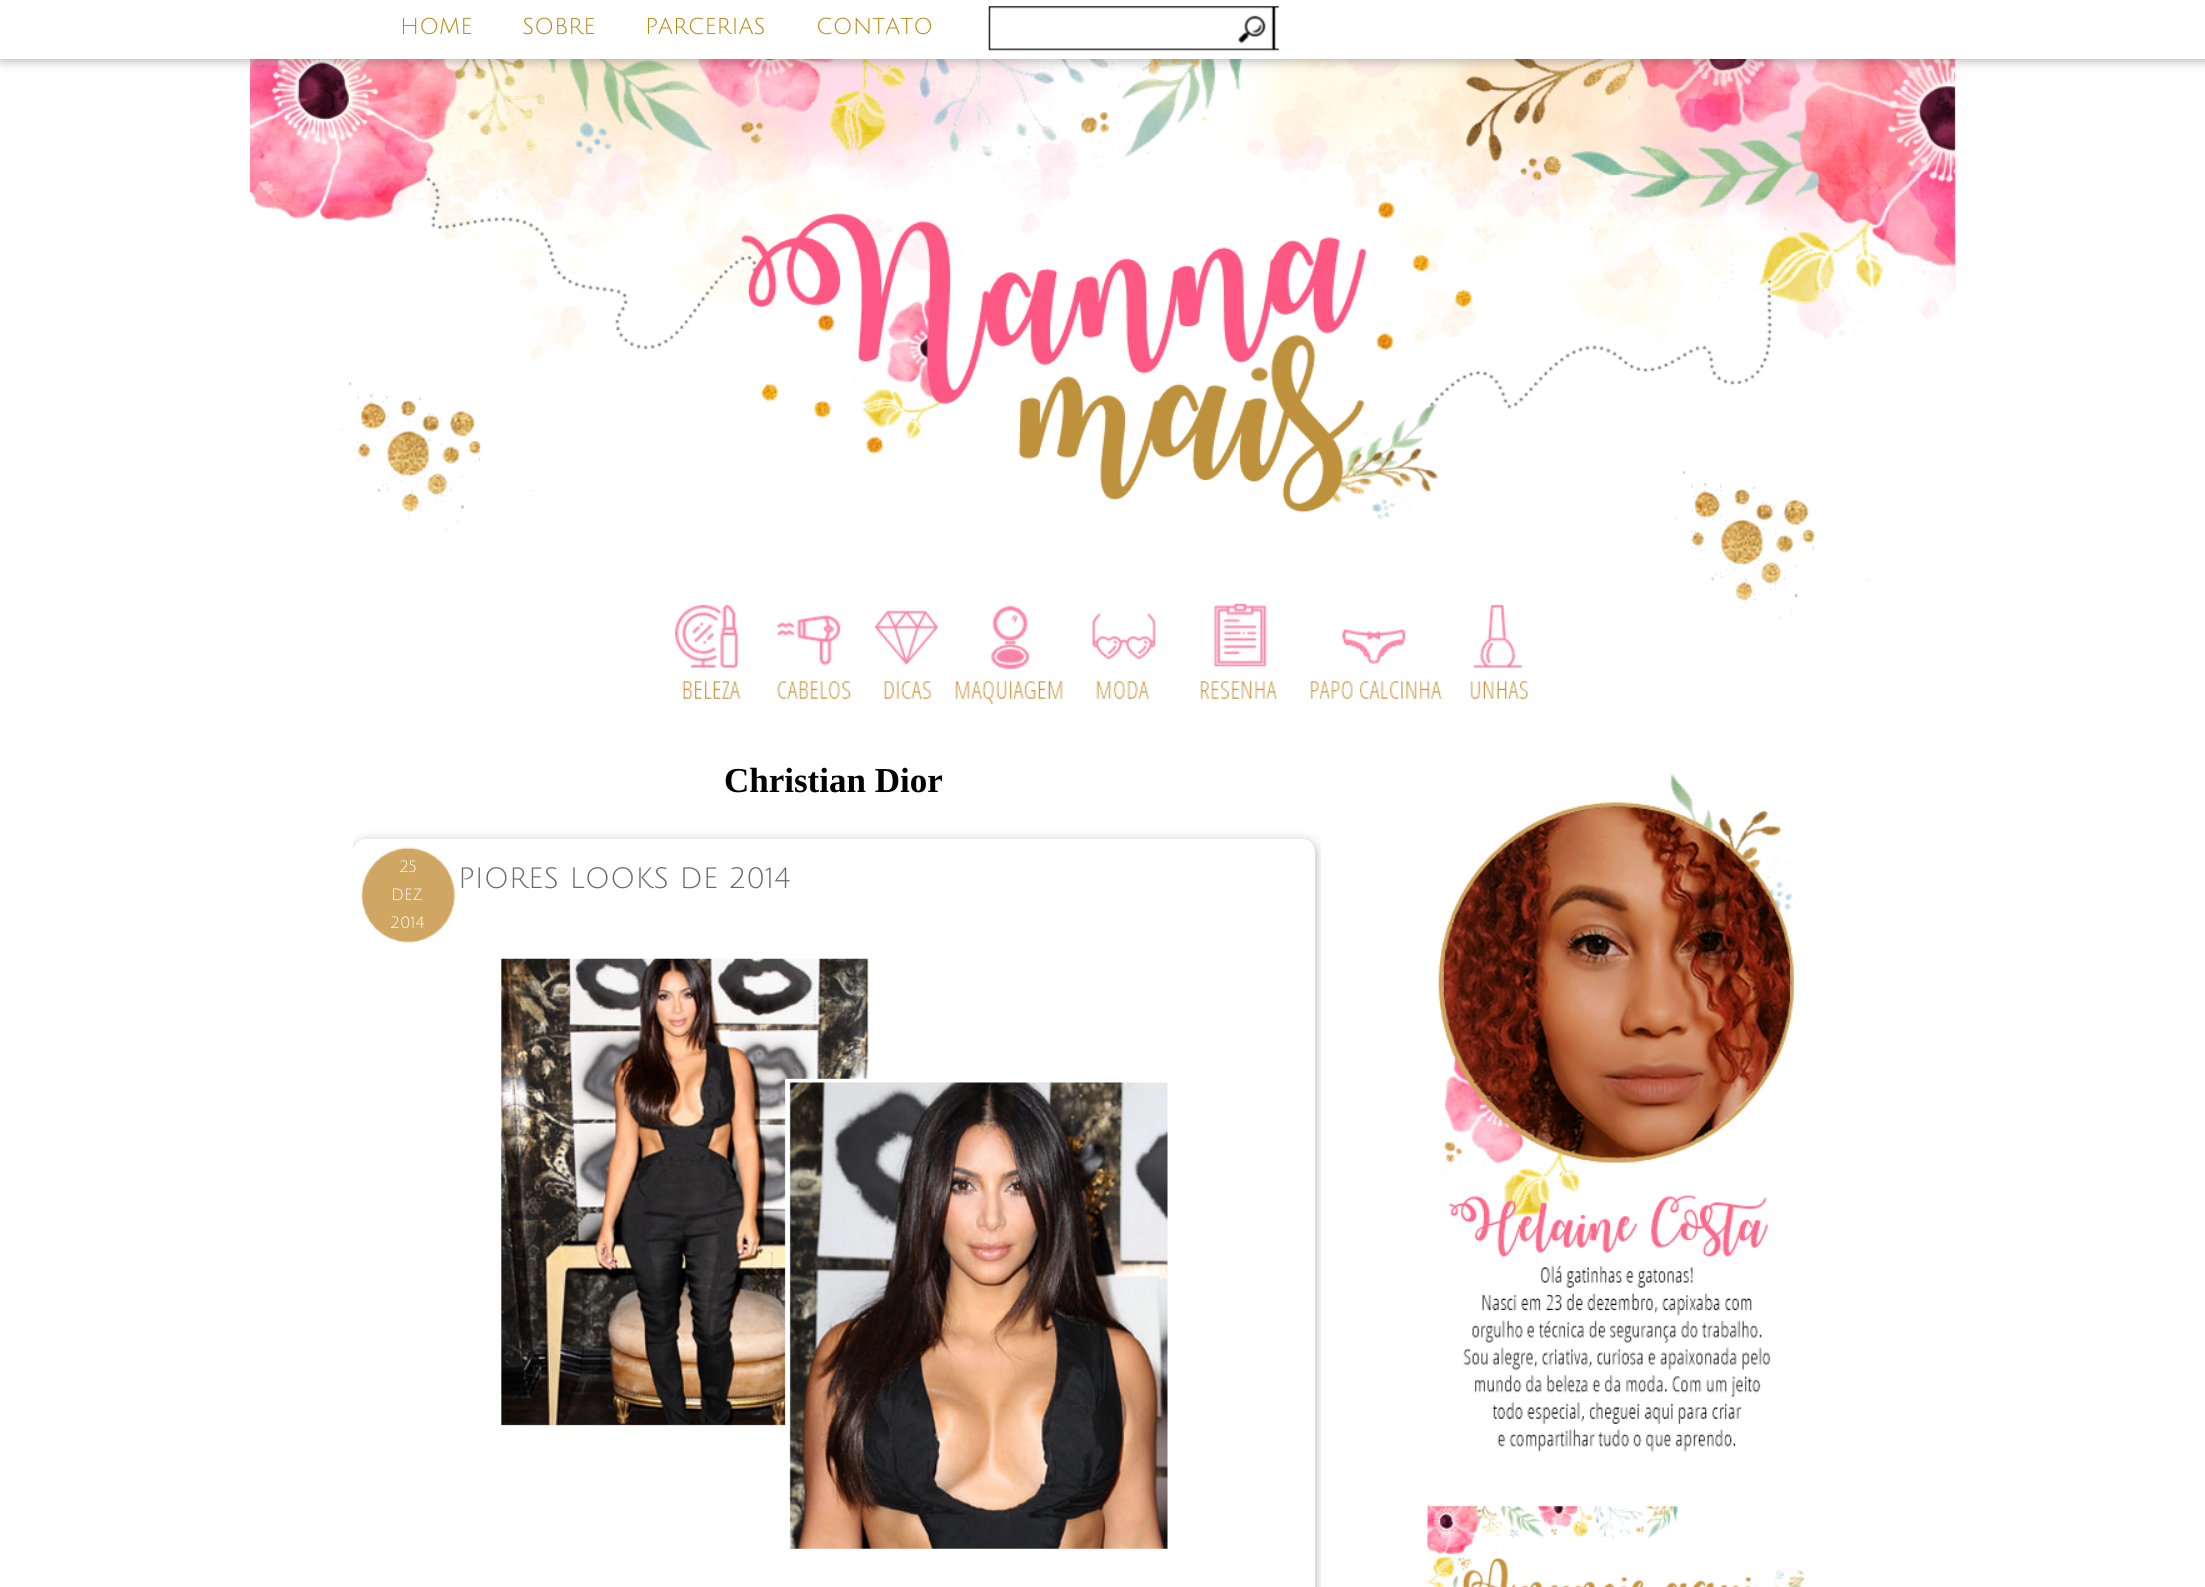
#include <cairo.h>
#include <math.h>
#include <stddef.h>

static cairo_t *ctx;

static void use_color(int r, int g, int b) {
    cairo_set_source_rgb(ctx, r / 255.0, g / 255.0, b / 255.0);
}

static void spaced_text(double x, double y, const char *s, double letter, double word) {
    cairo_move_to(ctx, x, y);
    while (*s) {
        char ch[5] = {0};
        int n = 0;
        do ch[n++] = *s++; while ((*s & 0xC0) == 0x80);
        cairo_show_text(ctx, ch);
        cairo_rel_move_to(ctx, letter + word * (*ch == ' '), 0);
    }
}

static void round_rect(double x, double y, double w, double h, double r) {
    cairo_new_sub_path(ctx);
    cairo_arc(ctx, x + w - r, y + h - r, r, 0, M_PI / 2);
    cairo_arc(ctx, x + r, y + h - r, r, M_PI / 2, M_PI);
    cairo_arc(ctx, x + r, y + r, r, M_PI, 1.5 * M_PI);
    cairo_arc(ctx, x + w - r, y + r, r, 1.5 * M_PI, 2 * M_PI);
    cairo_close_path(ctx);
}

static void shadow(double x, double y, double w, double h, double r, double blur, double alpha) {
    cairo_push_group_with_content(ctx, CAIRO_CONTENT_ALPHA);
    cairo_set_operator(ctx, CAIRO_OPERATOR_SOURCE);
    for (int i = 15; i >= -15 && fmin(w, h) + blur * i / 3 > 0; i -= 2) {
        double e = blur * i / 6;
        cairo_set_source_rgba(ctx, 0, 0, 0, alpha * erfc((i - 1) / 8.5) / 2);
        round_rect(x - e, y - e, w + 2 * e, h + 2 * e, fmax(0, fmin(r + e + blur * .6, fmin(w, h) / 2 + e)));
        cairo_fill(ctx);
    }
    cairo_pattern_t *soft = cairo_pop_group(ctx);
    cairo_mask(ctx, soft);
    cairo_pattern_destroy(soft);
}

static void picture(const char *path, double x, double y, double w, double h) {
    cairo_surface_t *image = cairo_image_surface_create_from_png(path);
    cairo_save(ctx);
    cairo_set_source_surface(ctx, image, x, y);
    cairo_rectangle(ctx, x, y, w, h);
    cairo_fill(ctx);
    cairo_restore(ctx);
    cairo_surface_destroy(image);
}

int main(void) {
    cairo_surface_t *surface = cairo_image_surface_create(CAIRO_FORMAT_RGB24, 2205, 1587);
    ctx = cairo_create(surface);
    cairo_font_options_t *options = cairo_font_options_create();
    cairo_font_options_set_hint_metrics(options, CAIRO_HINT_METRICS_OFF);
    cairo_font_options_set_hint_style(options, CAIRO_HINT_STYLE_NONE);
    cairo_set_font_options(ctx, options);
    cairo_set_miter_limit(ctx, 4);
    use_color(255, 255, 255);
    cairo_paint(ctx);
    picture("img1.png", 250, 59, 1707, 560);
    use_color(50, 50, 50);
    shadow(1, 3, 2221, 58, 0, 5.5, 0.35);
    use_color(255, 255, 255);
    cairo_rectangle(ctx, 0, 0, 2205, 59);
    cairo_fill(ctx);
    cairo_select_font_face(ctx, "Julius Sans One", CAIRO_FONT_SLANT_NORMAL, CAIRO_FONT_WEIGHT_NORMAL);
    cairo_set_font_size(ctx, 22.5);
    use_color(184, 134, 11);
    cairo_move_to(ctx, 400, 34);
    cairo_show_text(ctx, "HOME");
    cairo_move_to(ctx, 522, 34);
    cairo_show_text(ctx, "SOBRE");
    cairo_move_to(ctx, 645, 34);
    cairo_show_text(ctx, "PARCERIAS");
    cairo_move_to(ctx, 816, 34);
    cairo_show_text(ctx, "CONTATO");
    picture("img2.png", 988, 6, 291, 45);
    picture("img3.png", 674, 604, 67, 95);
    picture("img4.png", 777, 615, 74, 84);
    picture("img5.png", 874, 610, 64, 89);
    picture("img6.png", 955, 606, 108, 98);
    picture("img7.png", 1092, 613, 64, 86);
    picture("img8.png", 1200, 603, 77, 96);
    picture("img9.png", 1310, 628, 132, 71);
    picture("img10.png", 1470, 604, 58, 95);
    cairo_select_font_face(ctx, "Liberation Serif", CAIRO_FONT_SLANT_NORMAL, CAIRO_FONT_WEIGHT_BOLD);
    cairo_set_font_size(ctx, 35);
    use_color(0, 0, 0);
    cairo_move_to(ctx, 724, 792);
    cairo_show_text(ctx, "Christian Dior");
    cairo_save(ctx);
    cairo_rectangle(ctx, 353, 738, 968, 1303);
    cairo_clip(ctx);
    use_color(50, 50, 50);
    shadow(354, 841, 962, 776, 13, 5.5, 0.35);
    cairo_restore(ctx);
    use_color(255, 255, 255);
    round_rect(353, 839, 962, 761, 13);
    cairo_fill(ctx);
    picture("img11.png", 361, 847, 95, 96);
    cairo_select_font_face(ctx, "Julius Sans One", CAIRO_FONT_SLANT_NORMAL, CAIRO_FONT_WEIGHT_NORMAL);
    cairo_set_font_size(ctx, 16);
    spaced_text(399, 872, "25", -1, 0);
    cairo_move_to(ctx, 391, 900);
    cairo_show_text(ctx, "DEZ");
    cairo_move_to(ctx, 390, 928);
    cairo_show_text(ctx, "2014");
    cairo_set_font_size(ctx, 28.75);
    use_color(105, 105, 105);
    cairo_move_to(ctx, 458, 888);
    cairo_show_text(ctx, "PIORES LOOKS DE 2014");
    picture("img12.png", 501, 958, 667, 591);
    picture("img13.png", 1438, 773, 359, 679);
    picture("img14.png", 1427, 1506, 377, 81);
    cairo_surface_write_to_png(surface, "result.png");
    cairo_font_options_destroy(options);
    cairo_destroy(ctx);
    cairo_surface_destroy(surface);
    return 0;
}
